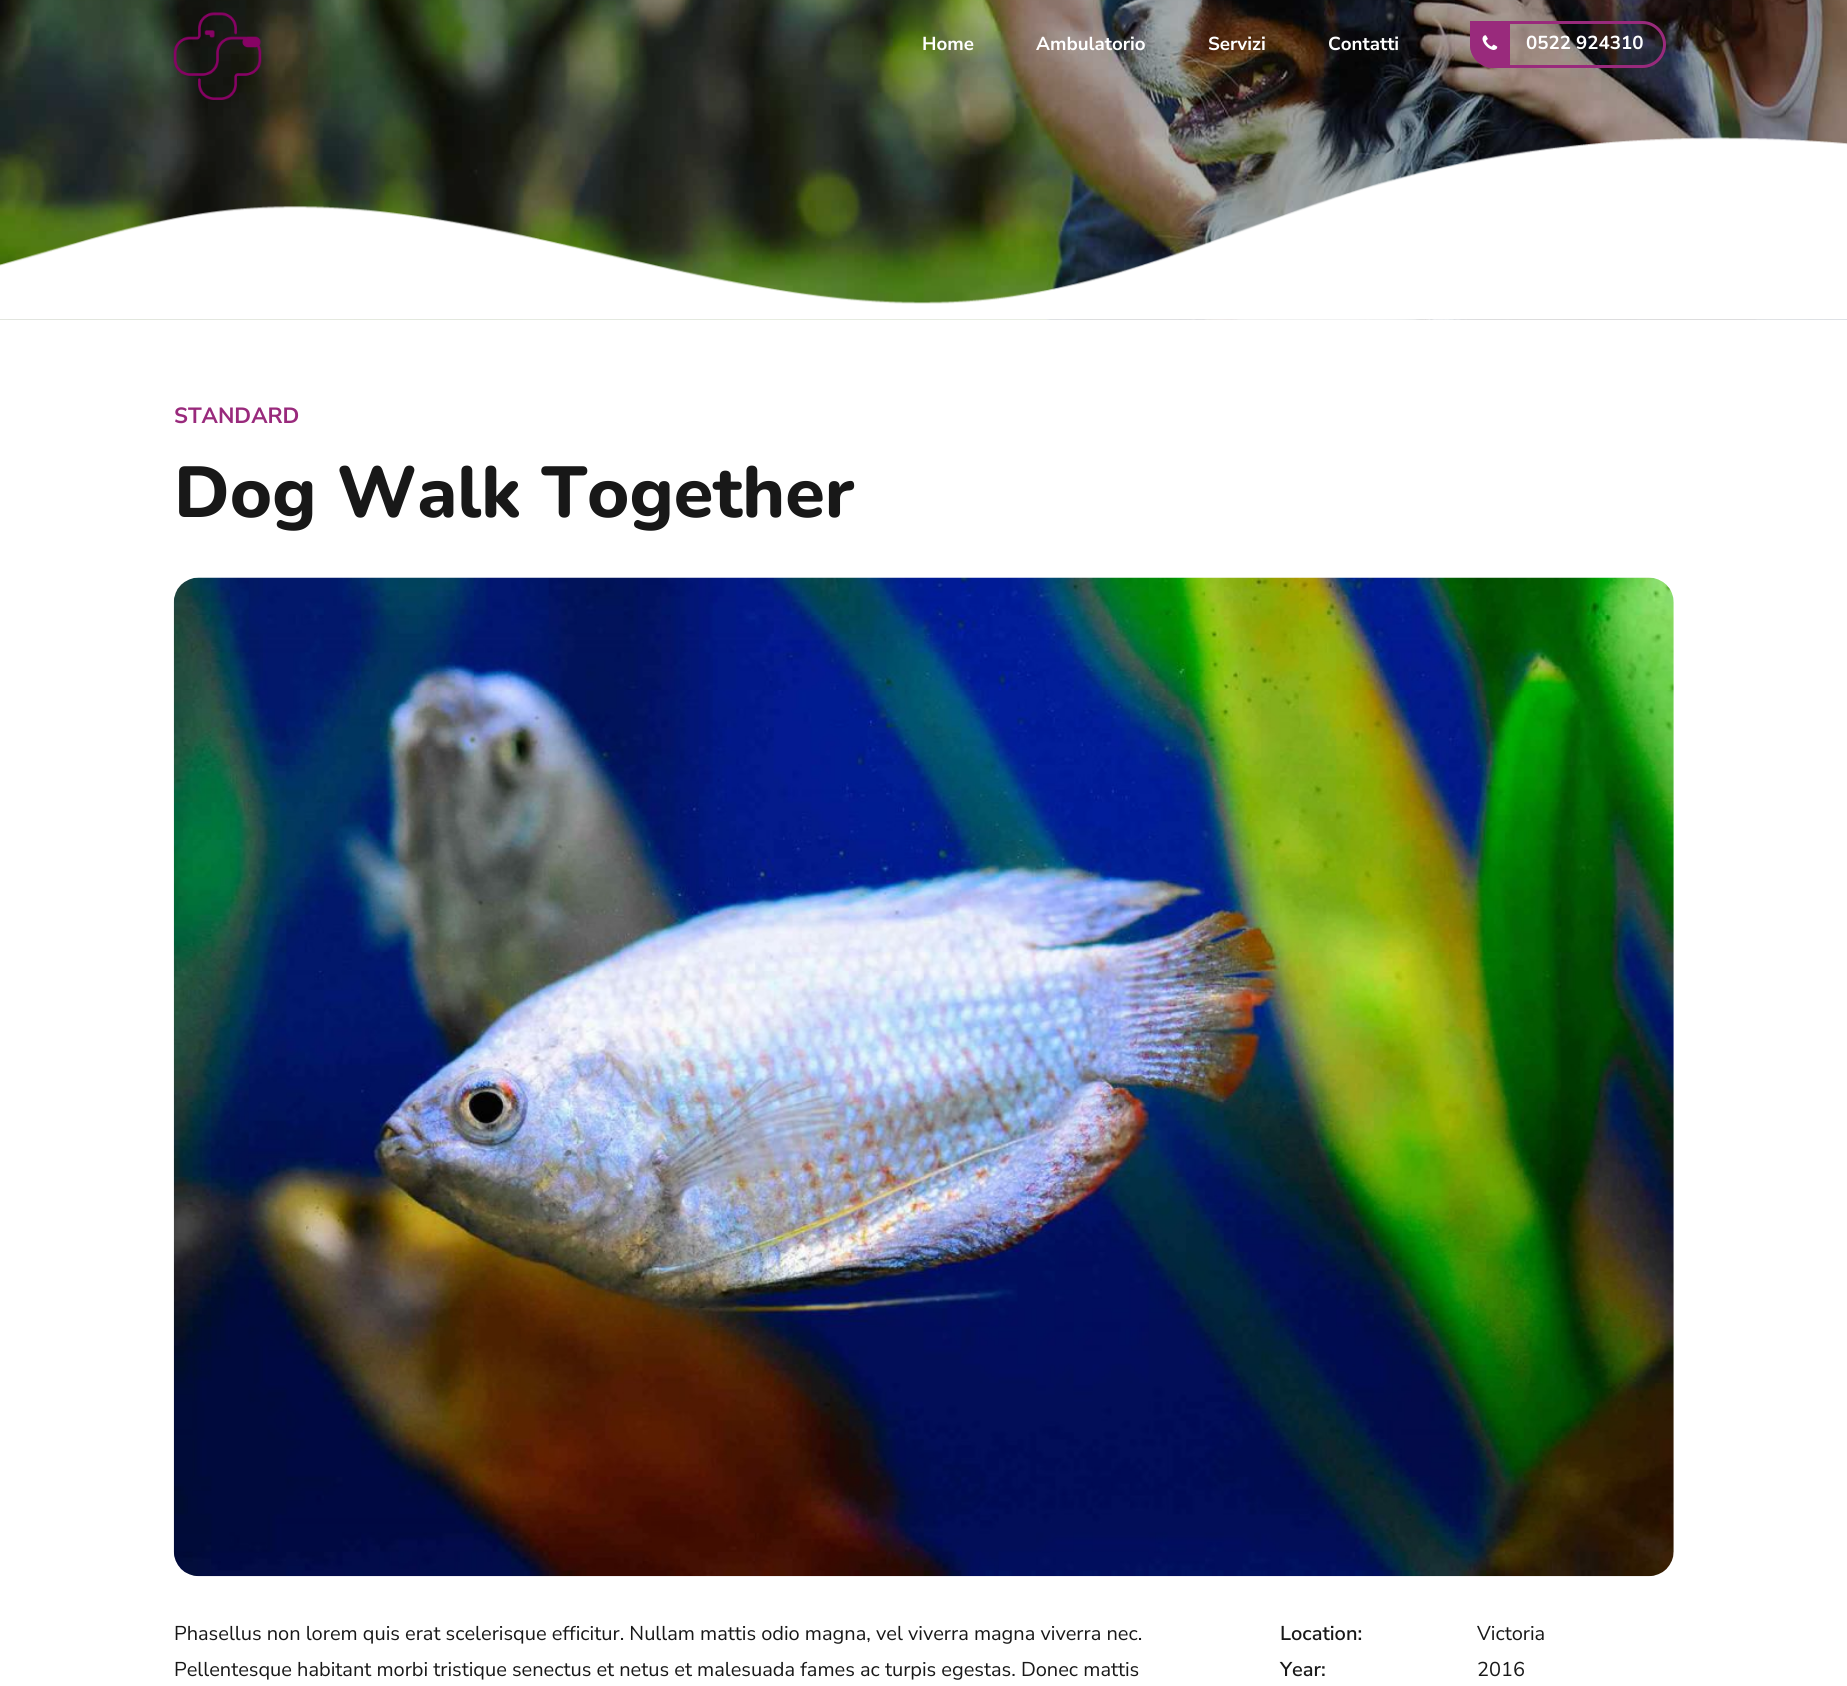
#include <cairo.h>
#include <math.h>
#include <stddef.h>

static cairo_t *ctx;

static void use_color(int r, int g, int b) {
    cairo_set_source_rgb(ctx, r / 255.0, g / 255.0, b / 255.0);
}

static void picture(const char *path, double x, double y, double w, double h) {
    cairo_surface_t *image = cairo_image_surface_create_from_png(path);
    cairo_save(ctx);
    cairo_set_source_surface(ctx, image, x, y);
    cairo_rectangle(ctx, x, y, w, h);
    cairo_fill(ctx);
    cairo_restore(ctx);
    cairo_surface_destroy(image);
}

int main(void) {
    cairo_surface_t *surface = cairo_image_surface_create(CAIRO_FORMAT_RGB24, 1847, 1686);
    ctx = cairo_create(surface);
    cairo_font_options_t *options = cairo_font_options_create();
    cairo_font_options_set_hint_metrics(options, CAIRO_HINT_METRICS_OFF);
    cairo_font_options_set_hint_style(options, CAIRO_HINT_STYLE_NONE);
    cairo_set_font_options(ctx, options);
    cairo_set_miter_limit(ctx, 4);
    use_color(255, 255, 255);
    cairo_paint(ctx);
    picture("img3.png", 0, 0, 1847, 320);
    picture("img1.png", 173, 12, 89, 88);
    cairo_select_font_face(ctx, "Nunito Sans", CAIRO_FONT_SLANT_NORMAL, CAIRO_FONT_WEIGHT_BOLD);
    cairo_set_font_size(ctx, 18.75);
    use_color(255, 255, 255);
    cairo_move_to(ctx, 922, 50);
    cairo_show_text(ctx, "Home");
    cairo_move_to(ctx, 1036, 50);
    cairo_show_text(ctx, "Ambulatorio");
    cairo_move_to(ctx, 1208, 50);
    cairo_show_text(ctx, "Servizi");
    cairo_move_to(ctx, 1328, 50);
    cairo_show_text(ctx, "Contatti");
    cairo_new_path(ctx);
    cairo_move_to(ctx, 1471.5, 22.5);
    cairo_line_to(ctx, 1642.5, 22.5);
    cairo_curve_to(ctx, 1654.5, 22.5, 1664.5, 32.5, 1664.5, 44.5);
    cairo_curve_to(ctx, 1664.5, 56.5, 1654.5, 66.5, 1642.5, 66.5);
    cairo_line_to(ctx, 1493.5, 66.5);
    cairo_curve_to(ctx, 1481.5, 66.5, 1471.5, 56.5, 1471.5, 44.5);
    cairo_close_path(ctx);
    use_color(153, 42, 124);
    cairo_set_line_width(ctx, 3);
    cairo_stroke(ctx);
    cairo_new_path(ctx);
    cairo_move_to(ctx, 1470, 21);
    cairo_line_to(ctx, 1510, 21);
    cairo_line_to(ctx, 1510, 68);
    cairo_line_to(ctx, 1493.5, 68);
    cairo_curve_to(ctx, 1480.5, 68, 1470, 57.5, 1470, 44.5);
    cairo_close_path(ctx);
    cairo_fill(ctx);
    picture("img2.png", 1482, 35, 16, 15);
    cairo_select_font_face(ctx, "Nunito", CAIRO_FONT_SLANT_NORMAL, CAIRO_FONT_WEIGHT_BOLD);
    use_color(255, 255, 255);
    cairo_move_to(ctx, 1526, 49);
    cairo_show_text(ctx, "0522 924310");
    picture("img4.png", 0, 137, 1847, 183);
    cairo_select_font_face(ctx, "Nunito Sans", CAIRO_FONT_SLANT_NORMAL, CAIRO_FONT_WEIGHT_BOLD);
    cairo_set_font_size(ctx, 22);
    use_color(153, 42, 124);
    cairo_move_to(ctx, 174, 423);
    cairo_show_text(ctx, "STANDARD");
    cairo_select_font_face(ctx, "Nunito ExtraBold", CAIRO_FONT_SLANT_NORMAL, CAIRO_FONT_WEIGHT_NORMAL);
    cairo_set_font_size(ctx, 72);
    use_color(24, 24, 24);
    cairo_move_to(ctx, 174, 517);
    cairo_show_text(ctx, "Dog Walk Together");
    picture("img5.png", 173, 577, 1501, 1000);
    cairo_select_font_face(ctx, "Nunito Sans", CAIRO_FONT_SLANT_NORMAL, CAIRO_FONT_WEIGHT_NORMAL);
    cairo_set_font_size(ctx, 20);
    cairo_move_to(ctx, 174, 1640);
    cairo_show_text(ctx, "Phasellus non lorem quis erat scelerisque efficitur. Nullam mattis odio magna, vel viverra magna viverra nec.");
    cairo_move_to(ctx, 174, 1676);
    cairo_show_text(ctx, "Pellentesque habitant morbi tristique senectus et netus et malesuada fames ac turpis egestas. Donec mattis");
    cairo_select_font_face(ctx, "Nunito Sans SemiBold", CAIRO_FONT_SLANT_NORMAL, CAIRO_FONT_WEIGHT_NORMAL);
    cairo_move_to(ctx, 1280, 1640);
    cairo_show_text(ctx, "Location:");
    cairo_select_font_face(ctx, "Nunito Sans", CAIRO_FONT_SLANT_NORMAL, CAIRO_FONT_WEIGHT_NORMAL);
    cairo_move_to(ctx, 1477, 1640);
    cairo_show_text(ctx, "Victoria");
    cairo_select_font_face(ctx, "Nunito Sans SemiBold", CAIRO_FONT_SLANT_NORMAL, CAIRO_FONT_WEIGHT_NORMAL);
    cairo_move_to(ctx, 1280, 1676);
    cairo_show_text(ctx, "Year:");
    cairo_select_font_face(ctx, "Nunito Sans", CAIRO_FONT_SLANT_NORMAL, CAIRO_FONT_WEIGHT_NORMAL);
    cairo_move_to(ctx, 1477, 1676);
    cairo_show_text(ctx, "2016");
    cairo_surface_write_to_png(surface, "result.png");
    cairo_font_options_destroy(options);
    cairo_destroy(ctx);
    cairo_surface_destroy(surface);
    return 0;
}
